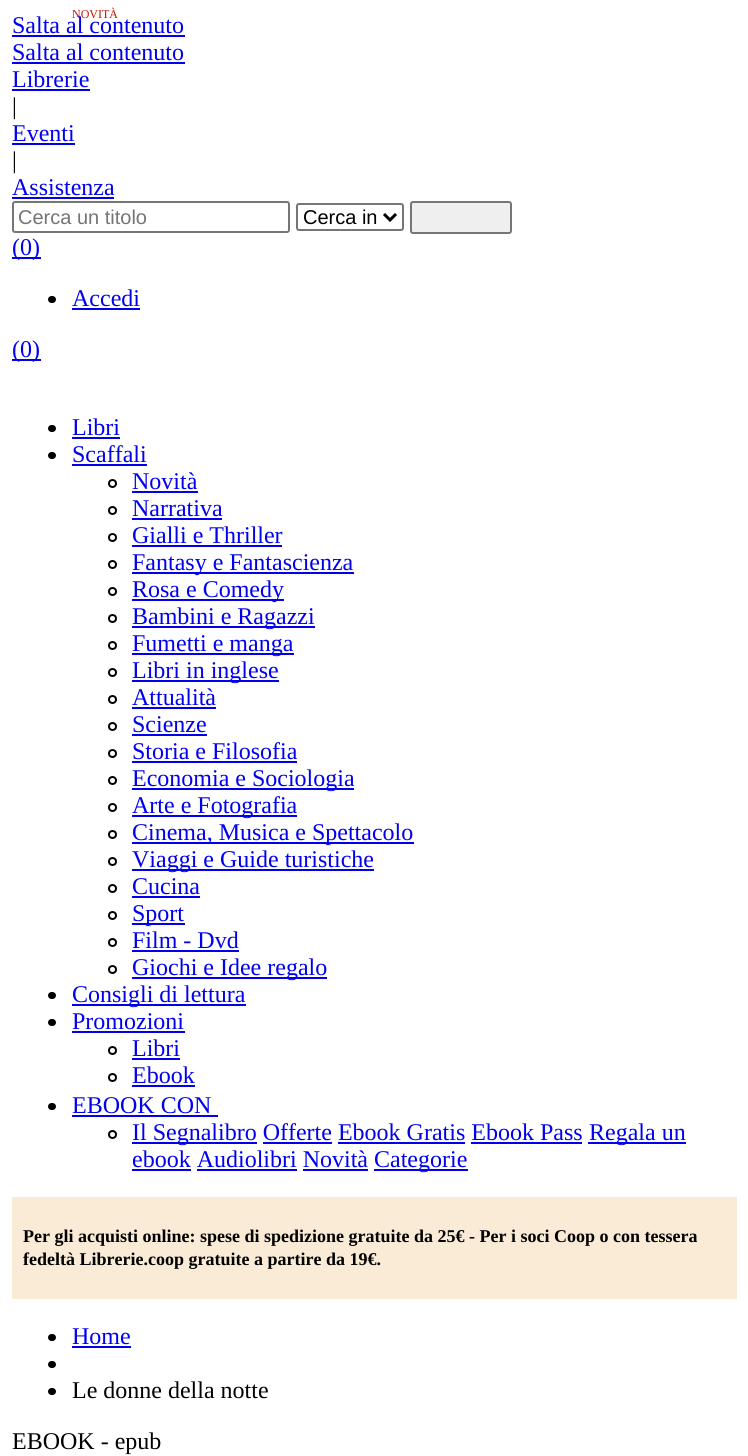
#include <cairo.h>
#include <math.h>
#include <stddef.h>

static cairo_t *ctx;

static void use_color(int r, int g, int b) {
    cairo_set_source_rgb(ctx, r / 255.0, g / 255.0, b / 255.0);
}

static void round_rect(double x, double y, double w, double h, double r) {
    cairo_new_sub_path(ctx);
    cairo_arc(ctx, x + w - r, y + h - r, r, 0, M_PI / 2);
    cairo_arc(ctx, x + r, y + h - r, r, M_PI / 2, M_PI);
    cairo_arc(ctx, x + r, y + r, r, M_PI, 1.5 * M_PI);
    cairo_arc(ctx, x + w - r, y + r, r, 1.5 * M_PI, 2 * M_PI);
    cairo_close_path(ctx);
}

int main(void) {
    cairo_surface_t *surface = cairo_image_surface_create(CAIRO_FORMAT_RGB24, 748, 1456);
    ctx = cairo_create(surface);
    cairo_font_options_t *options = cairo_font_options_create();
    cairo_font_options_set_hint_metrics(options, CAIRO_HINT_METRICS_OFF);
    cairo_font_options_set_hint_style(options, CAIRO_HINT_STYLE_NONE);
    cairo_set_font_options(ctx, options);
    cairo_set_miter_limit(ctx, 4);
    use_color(255, 255, 255);
    cairo_paint(ctx);
    use_color(0, 0, 0);
    round_rect(48, 1103, 8, 7, 3.5);
    cairo_fill(ctx);
    cairo_select_font_face(ctx, "Liberation Serif", CAIRO_FONT_SLANT_NORMAL, CAIRO_FONT_WEIGHT_NORMAL);
    cairo_set_font_size(ctx, 12);
    use_color(192, 20, 10);
    cairo_move_to(ctx, 72, 18);
    cairo_show_text(ctx, "NOVITÀ");
    cairo_set_font_size(ctx, 24);
    use_color(0, 0, 238);
    cairo_move_to(ctx, 72, 1113);
    cairo_show_text(ctx, "EBOOK CON");
    cairo_rectangle(ctx, 72, 1115, 146, 2);
    cairo_fill(ctx);
    cairo_arc(ctx, 112.5, 1134.5, 3.5, 0, 2 * M_PI);
    use_color(0, 0, 0);
    cairo_stroke(ctx);
    use_color(0, 0, 238);
    cairo_rectangle(ctx, 132, 1142, 125, 2);
    cairo_fill(ctx);
    cairo_move_to(ctx, 132, 1140);
    cairo_show_text(ctx, "Il Segnalibro Offerte Ebook Gratis Ebook Pass");
    cairo_rectangle(ctx, 588, 1142, 98, 2);
    cairo_fill(ctx);
    cairo_move_to(ctx, 589, 1140);
    cairo_show_text(ctx, "Regala un");
    cairo_rectangle(ctx, 263, 1142, 69, 2);
    cairo_fill(ctx);
    cairo_rectangle(ctx, 338, 1142, 127, 2);
    cairo_fill(ctx);
    cairo_rectangle(ctx, 471, 1142, 111, 2);
    cairo_fill(ctx);
    cairo_move_to(ctx, 132, 1167);
    cairo_show_text(ctx, "ebook Audiolibri Novità");
    cairo_rectangle(ctx, 132, 1169, 59, 2);
    cairo_fill(ctx);
    cairo_rectangle(ctx, 374, 1169, 94, 2);
    cairo_fill(ctx);
    cairo_move_to(ctx, 374, 1167);
    cairo_show_text(ctx, "Categorie");
    cairo_rectangle(ctx, 197, 1169, 100, 2);
    cairo_fill(ctx);
    cairo_rectangle(ctx, 303, 1169, 65, 2);
    cairo_fill(ctx);
    use_color(0, 0, 0);
    round_rect(48, 425, 8, 7, 3.5);
    cairo_fill(ctx);
    use_color(0, 0, 238);
    cairo_move_to(ctx, 72, 435);
    cairo_show_text(ctx, "Libri");
    cairo_rectangle(ctx, 72, 437, 48, 2);
    cairo_fill(ctx);
    use_color(0, 0, 0);
    round_rect(48, 452, 8, 7, 3.5);
    cairo_fill(ctx);
    use_color(0, 0, 238);
    cairo_move_to(ctx, 72, 462);
    cairo_show_text(ctx, "Scaffali");
    cairo_rectangle(ctx, 72, 464, 75, 2);
    cairo_fill(ctx);
    cairo_arc(ctx, 112.5, 483.5, 3.5, 0, 2 * M_PI);
    use_color(0, 0, 0);
    cairo_stroke(ctx);
    use_color(0, 0, 238);
    cairo_move_to(ctx, 132, 489);
    cairo_show_text(ctx, "Novità");
    cairo_rectangle(ctx, 132, 491, 66, 2);
    cairo_fill(ctx);
    cairo_arc(ctx, 112.5, 510.5, 3.5, 0, 2 * M_PI);
    use_color(0, 0, 0);
    cairo_stroke(ctx);
    use_color(0, 0, 238);
    cairo_move_to(ctx, 132, 516);
    cairo_show_text(ctx, "Narrativa");
    cairo_rectangle(ctx, 132, 518, 90, 2);
    cairo_fill(ctx);
    cairo_arc(ctx, 112.5, 537.5, 3.5, 0, 2 * M_PI);
    use_color(0, 0, 0);
    cairo_stroke(ctx);
    use_color(0, 0, 238);
    cairo_move_to(ctx, 132, 543);
    cairo_show_text(ctx, "Gialli e Thriller");
    cairo_rectangle(ctx, 132, 545, 150, 2);
    cairo_fill(ctx);
    cairo_arc(ctx, 112.5, 564.5, 3.5, 0, 2 * M_PI);
    use_color(0, 0, 0);
    cairo_stroke(ctx);
    use_color(0, 0, 238);
    cairo_rectangle(ctx, 132, 572, 222, 2);
    cairo_fill(ctx);
    cairo_move_to(ctx, 132, 570);
    cairo_show_text(ctx, "Fantasy e Fantascienza");
    cairo_new_path(ctx);
    cairo_arc(ctx, 112.5, 591.5, 3.5, 0, 2 * M_PI);
    use_color(0, 0, 0);
    cairo_stroke(ctx);
    use_color(0, 0, 238);
    cairo_rectangle(ctx, 132, 599, 152, 2);
    cairo_fill(ctx);
    cairo_move_to(ctx, 132, 597);
    cairo_show_text(ctx, "Rosa e Comedy");
    cairo_new_path(ctx);
    cairo_arc(ctx, 112.5, 618.5, 3.5, 0, 2 * M_PI);
    use_color(0, 0, 0);
    cairo_stroke(ctx);
    use_color(0, 0, 238);
    cairo_rectangle(ctx, 132, 626, 183, 2);
    cairo_fill(ctx);
    cairo_move_to(ctx, 132, 624);
    cairo_show_text(ctx, "Bambini e Ragazzi");
    cairo_new_path(ctx);
    cairo_arc(ctx, 112.5, 645.5, 3.5, 0, 2 * M_PI);
    use_color(0, 0, 0);
    cairo_stroke(ctx);
    use_color(0, 0, 238);
    cairo_rectangle(ctx, 132, 653, 162, 2);
    cairo_fill(ctx);
    cairo_move_to(ctx, 132, 651);
    cairo_show_text(ctx, "Fumetti e manga");
    cairo_new_path(ctx);
    cairo_arc(ctx, 112.5, 672.5, 3.5, 0, 2 * M_PI);
    use_color(0, 0, 0);
    cairo_stroke(ctx);
    use_color(0, 0, 238);
    cairo_rectangle(ctx, 132, 680, 147, 2);
    cairo_fill(ctx);
    cairo_move_to(ctx, 132, 678);
    cairo_show_text(ctx, "Libri in inglese");
    cairo_new_path(ctx);
    cairo_arc(ctx, 112.5, 699.5, 3.5, 0, 2 * M_PI);
    use_color(0, 0, 0);
    cairo_stroke(ctx);
    use_color(0, 0, 238);
    cairo_move_to(ctx, 132, 705);
    cairo_show_text(ctx, "Attualità");
    cairo_rectangle(ctx, 132, 707, 84, 2);
    cairo_fill(ctx);
    cairo_arc(ctx, 112.5, 726.5, 3.5, 0, 2 * M_PI);
    use_color(0, 0, 0);
    cairo_stroke(ctx);
    use_color(0, 0, 238);
    cairo_move_to(ctx, 132, 732);
    cairo_show_text(ctx, "Scienze");
    cairo_rectangle(ctx, 132, 734, 75, 2);
    cairo_fill(ctx);
    cairo_arc(ctx, 112.5, 753.5, 3.5, 0, 2 * M_PI);
    use_color(0, 0, 0);
    cairo_stroke(ctx);
    use_color(0, 0, 238);
    cairo_move_to(ctx, 132, 759);
    cairo_show_text(ctx, "Storia e Filosofia");
    cairo_rectangle(ctx, 132, 761, 165, 2);
    cairo_fill(ctx);
    cairo_arc(ctx, 112.5, 780.5, 3.5, 0, 2 * M_PI);
    use_color(0, 0, 0);
    cairo_stroke(ctx);
    use_color(0, 0, 238);
    cairo_rectangle(ctx, 132, 788, 222, 2);
    cairo_fill(ctx);
    cairo_move_to(ctx, 132, 786);
    cairo_show_text(ctx, "Economia e Sociologia");
    cairo_new_path(ctx);
    cairo_arc(ctx, 112.5, 807.5, 3.5, 0, 2 * M_PI);
    use_color(0, 0, 0);
    cairo_stroke(ctx);
    use_color(0, 0, 238);
    cairo_rectangle(ctx, 132, 815, 165, 2);
    cairo_fill(ctx);
    cairo_move_to(ctx, 132, 813);
    cairo_show_text(ctx, "Arte e Fotografia");
    cairo_new_path(ctx);
    cairo_arc(ctx, 112.5, 834.5, 3.5, 0, 2 * M_PI);
    use_color(0, 0, 0);
    cairo_stroke(ctx);
    use_color(0, 0, 238);
    cairo_rectangle(ctx, 132, 842, 282, 2);
    cairo_fill(ctx);
    cairo_move_to(ctx, 132, 840);
    cairo_show_text(ctx, "Cinema, Musica e Spettacolo");
    cairo_new_path(ctx);
    cairo_arc(ctx, 112.5, 861.5, 3.5, 0, 2 * M_PI);
    use_color(0, 0, 0);
    cairo_stroke(ctx);
    use_color(0, 0, 238);
    cairo_rectangle(ctx, 132, 869, 242, 2);
    cairo_fill(ctx);
    cairo_move_to(ctx, 132, 867);
    cairo_show_text(ctx, "Viaggi e Guide turistiche");
    cairo_new_path(ctx);
    cairo_arc(ctx, 112.5, 888.5, 3.5, 0, 2 * M_PI);
    use_color(0, 0, 0);
    cairo_stroke(ctx);
    use_color(0, 0, 238);
    cairo_move_to(ctx, 132, 894);
    cairo_show_text(ctx, "Cucina");
    cairo_rectangle(ctx, 132, 896, 68, 2);
    cairo_fill(ctx);
    cairo_arc(ctx, 112.5, 915.5, 3.5, 0, 2 * M_PI);
    use_color(0, 0, 0);
    cairo_stroke(ctx);
    use_color(0, 0, 238);
    cairo_rectangle(ctx, 132, 923, 53, 2);
    cairo_fill(ctx);
    cairo_move_to(ctx, 132, 921);
    cairo_show_text(ctx, "Sport");
    cairo_new_path(ctx);
    cairo_arc(ctx, 112.5, 942.5, 3.5, 0, 2 * M_PI);
    use_color(0, 0, 0);
    cairo_stroke(ctx);
    use_color(0, 0, 238);
    cairo_move_to(ctx, 132, 948);
    cairo_show_text(ctx, "Film - Dvd");
    cairo_rectangle(ctx, 132, 950, 107, 2);
    cairo_fill(ctx);
    cairo_arc(ctx, 112.5, 969.5, 3.5, 0, 2 * M_PI);
    use_color(0, 0, 0);
    cairo_stroke(ctx);
    use_color(0, 0, 238);
    cairo_rectangle(ctx, 132, 977, 195, 2);
    cairo_fill(ctx);
    cairo_move_to(ctx, 132, 975);
    cairo_show_text(ctx, "Giochi e Idee regalo");
    use_color(0, 0, 0);
    round_rect(48, 992, 8, 7, 3.5);
    cairo_fill(ctx);
    use_color(0, 0, 238);
    cairo_rectangle(ctx, 72, 1004, 174, 2);
    cairo_fill(ctx);
    cairo_move_to(ctx, 72, 1002);
    cairo_show_text(ctx, "Consigli di lettura");
    use_color(0, 0, 0);
    round_rect(48, 1019, 8, 7, 3.5);
    cairo_fill(ctx);
    use_color(0, 0, 238);
    cairo_move_to(ctx, 72, 1029);
    cairo_show_text(ctx, "Promozioni");
    cairo_rectangle(ctx, 72, 1031, 113, 2);
    cairo_fill(ctx);
    cairo_arc(ctx, 112.5, 1050.5, 3.5, 0, 2 * M_PI);
    use_color(0, 0, 0);
    cairo_stroke(ctx);
    use_color(0, 0, 238);
    cairo_move_to(ctx, 132, 1056);
    cairo_show_text(ctx, "Libri");
    cairo_rectangle(ctx, 132, 1058, 48, 2);
    cairo_fill(ctx);
    cairo_arc(ctx, 112.5, 1077.5, 3.5, 0, 2 * M_PI);
    use_color(0, 0, 0);
    cairo_stroke(ctx);
    use_color(0, 0, 238);
    cairo_move_to(ctx, 132, 1083);
    cairo_show_text(ctx, "Ebook");
    cairo_rectangle(ctx, 132, 1085, 63, 2);
    cairo_fill(ctx);
    cairo_move_to(ctx, 12, 33);
    cairo_show_text(ctx, "Salta al contenuto");
    cairo_rectangle(ctx, 12, 35, 173, 2);
    cairo_fill(ctx);
    cairo_move_to(ctx, 12, 60);
    cairo_show_text(ctx, "Salta al contenuto");
    cairo_rectangle(ctx, 12, 62, 173, 2);
    cairo_fill(ctx);
    cairo_move_to(ctx, 12, 87);
    cairo_show_text(ctx, "Librerie");
    cairo_rectangle(ctx, 12, 89, 78, 2);
    cairo_fill(ctx);
    use_color(0, 0, 0);
    cairo_move_to(ctx, 12, 114);
    cairo_show_text(ctx, "|");
    use_color(0, 0, 238);
    cairo_move_to(ctx, 12, 141);
    cairo_show_text(ctx, "Eventi");
    cairo_rectangle(ctx, 12, 143, 63, 2);
    cairo_fill(ctx);
    use_color(0, 0, 0);
    cairo_move_to(ctx, 12, 168);
    cairo_show_text(ctx, "|");
    use_color(0, 0, 238);
    cairo_move_to(ctx, 12, 195);
    cairo_show_text(ctx, "Assistenza");
    cairo_rectangle(ctx, 12, 197, 102, 2);
    cairo_fill(ctx);
    round_rect(13, 202, 276, 30, 2);
    use_color(118, 118, 118);
    cairo_stroke(ctx);
    cairo_select_font_face(ctx, "Liberation Sans", CAIRO_FONT_SLANT_NORMAL, CAIRO_FONT_WEIGHT_NORMAL);
    cairo_set_font_size(ctx, 20);
    use_color(117, 117, 117);
    cairo_move_to(ctx, 18, 224);
    cairo_show_text(ctx, "Cerca un titolo");
    round_rect(297, 204, 106, 26, 2);
    use_color(118, 118, 118);
    cairo_stroke(ctx);
    cairo_new_path(ctx);
    cairo_move_to(ctx, 384, 214);
    cairo_line_to(ctx, 390, 220);
    cairo_line_to(ctx, 396, 214);
    use_color(0, 0, 0);
    cairo_set_line_width(ctx, 3);
    cairo_stroke(ctx);
    cairo_move_to(ctx, 303, 224);
    cairo_show_text(ctx, "Cerca in");
    use_color(239, 239, 239);
    round_rect(411, 202, 100, 31, 2);
    cairo_fill_preserve(ctx);
    use_color(118, 118, 118);
    cairo_set_line_width(ctx, 2);
    cairo_stroke(ctx);
    use_color(0, 0, 238);
    cairo_rectangle(ctx, 12, 257, 29, 2);
    cairo_fill(ctx);
    cairo_select_font_face(ctx, "Liberation Serif", CAIRO_FONT_SLANT_NORMAL, CAIRO_FONT_WEIGHT_NORMAL);
    cairo_set_font_size(ctx, 24);
    cairo_move_to(ctx, 12, 255);
    cairo_show_text(ctx, "(0)");
    use_color(0, 0, 0);
    round_rect(48, 296, 8, 7, 3.5);
    cairo_fill(ctx);
    use_color(0, 0, 238);
    cairo_move_to(ctx, 72, 306);
    cairo_show_text(ctx, "Accedi");
    cairo_rectangle(ctx, 72, 308, 68, 2);
    cairo_fill(ctx);
    cairo_rectangle(ctx, 12, 359, 29, 2);
    cairo_fill(ctx);
    cairo_move_to(ctx, 12, 357);
    cairo_show_text(ctx, "(0)");
    use_color(250, 235, 215);
    cairo_rectangle(ctx, 12, 1197, 725, 102);
    cairo_fill(ctx);
    cairo_select_font_face(ctx, "Liberation Serif", CAIRO_FONT_SLANT_NORMAL, CAIRO_FONT_WEIGHT_BOLD);
    cairo_set_font_size(ctx, 18);
    use_color(0, 0, 0);
    cairo_move_to(ctx, 23, 1242);
    cairo_show_text(ctx, "Per gli acquisti online: spese di spedizione gratuite da 25€ - Per i soci Coop o con tessera");
    cairo_move_to(ctx, 23, 1265);
    cairo_show_text(ctx, "fedeltà Librerie.coop gratuite a partire da 19€.");
    round_rect(48, 1334, 8, 7, 3.5);
    cairo_fill(ctx);
    cairo_select_font_face(ctx, "Liberation Serif", CAIRO_FONT_SLANT_NORMAL, CAIRO_FONT_WEIGHT_NORMAL);
    cairo_set_font_size(ctx, 24);
    use_color(0, 0, 238);
    cairo_move_to(ctx, 72, 1344);
    cairo_show_text(ctx, "Home");
    cairo_rectangle(ctx, 72, 1346, 59, 2);
    cairo_fill(ctx);
    use_color(0, 0, 0);
    round_rect(48, 1361, 8, 7, 3.5);
    cairo_fill(ctx);
    round_rect(48, 1388, 8, 7, 3.5);
    cairo_fill(ctx);
    cairo_move_to(ctx, 72, 1398);
    cairo_show_text(ctx, "Le donne della notte");
    cairo_move_to(ctx, 12, 1449);
    cairo_show_text(ctx, "EBOOK - epub");
    cairo_surface_write_to_png(surface, "result.png");
    cairo_font_options_destroy(options);
    cairo_destroy(ctx);
    cairo_surface_destroy(surface);
    return 0;
}
